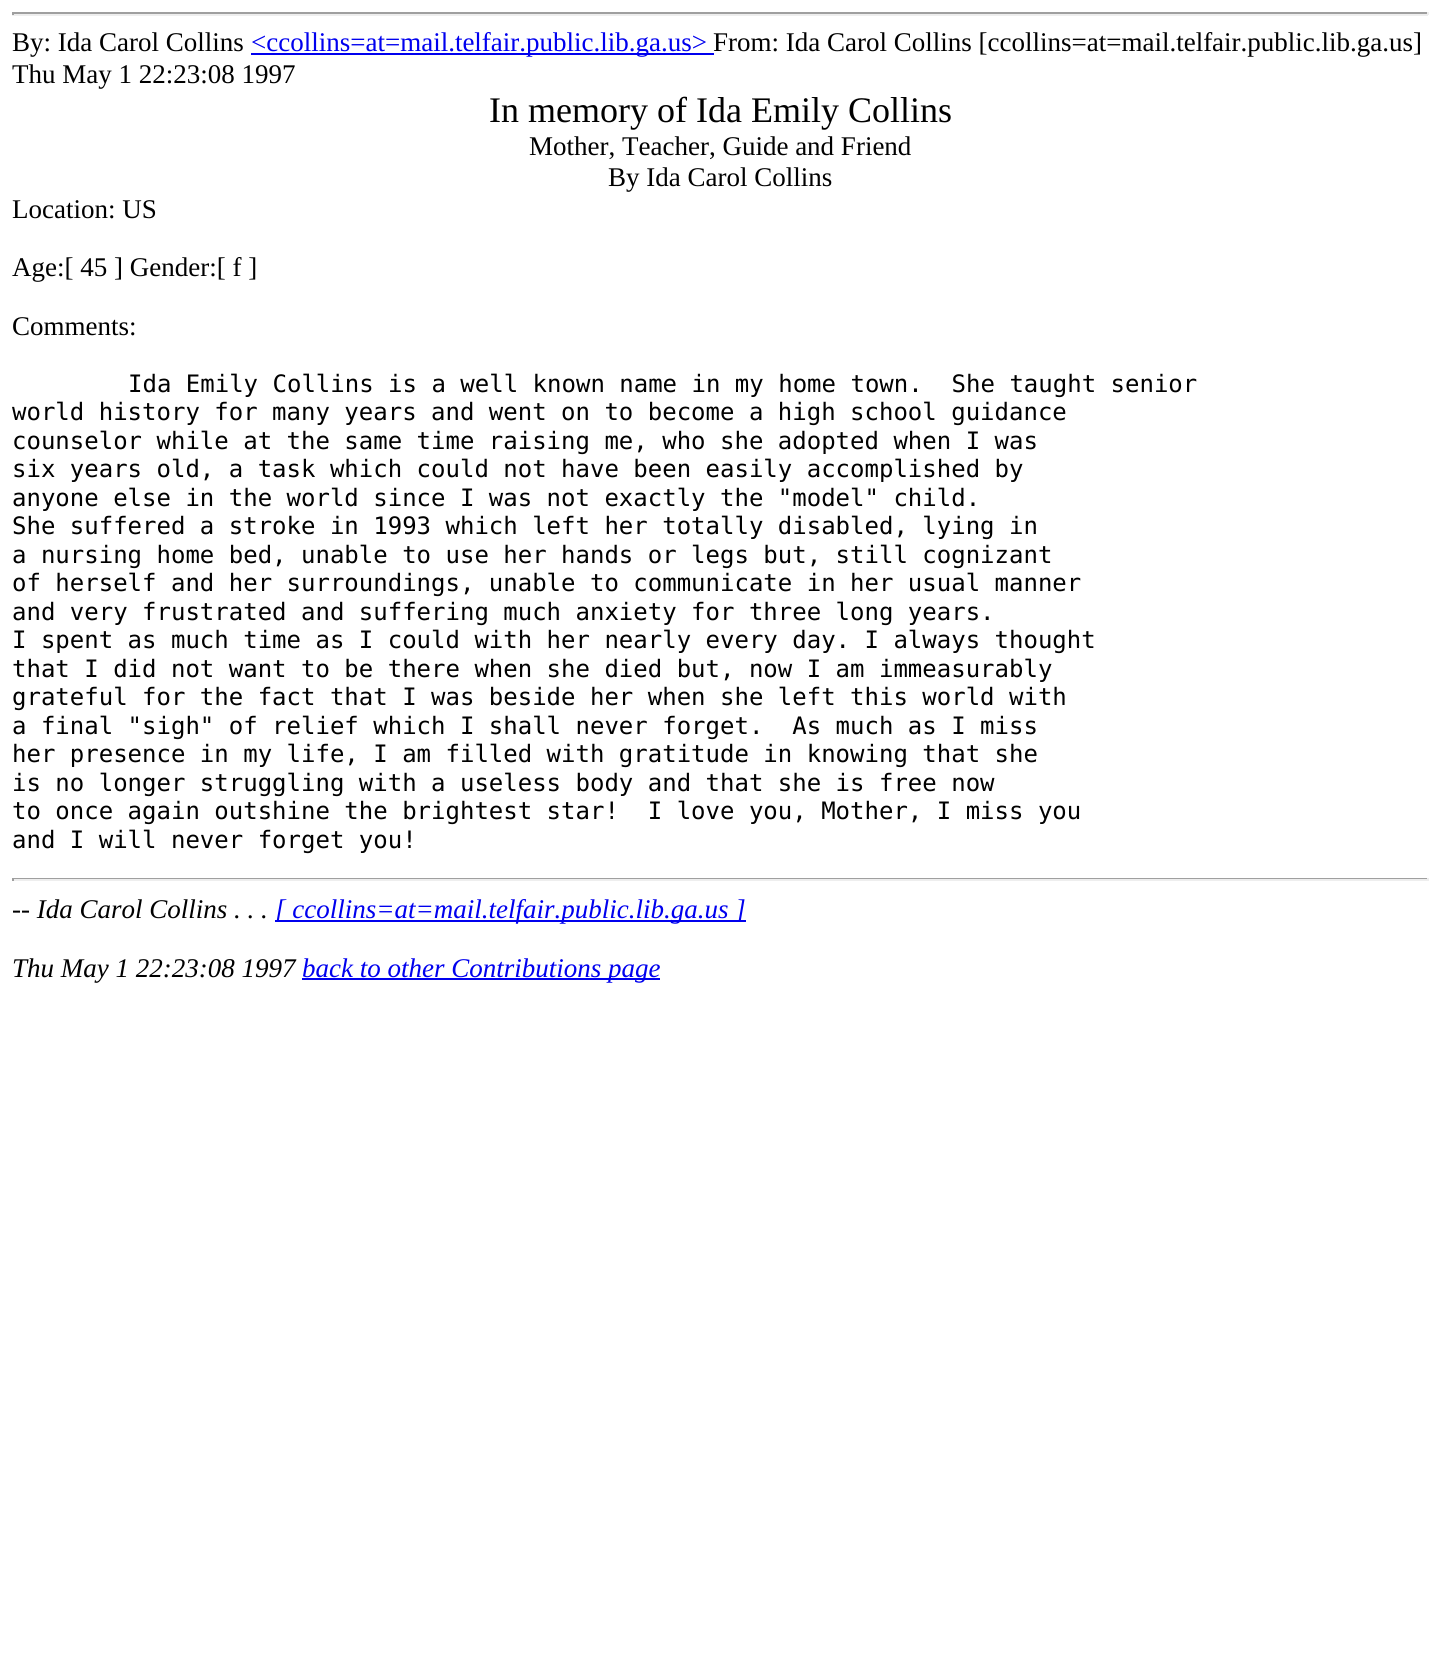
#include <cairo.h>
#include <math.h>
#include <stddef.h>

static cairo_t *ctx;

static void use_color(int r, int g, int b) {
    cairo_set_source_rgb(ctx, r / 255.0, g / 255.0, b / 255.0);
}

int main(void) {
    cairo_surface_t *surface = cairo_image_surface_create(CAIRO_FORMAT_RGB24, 1440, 1660);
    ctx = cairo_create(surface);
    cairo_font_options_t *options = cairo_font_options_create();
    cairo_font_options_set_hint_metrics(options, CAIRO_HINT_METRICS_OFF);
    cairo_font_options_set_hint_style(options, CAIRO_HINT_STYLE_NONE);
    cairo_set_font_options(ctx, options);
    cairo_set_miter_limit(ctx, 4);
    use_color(255, 255, 255);
    cairo_paint(ctx);
    use_color(159, 159, 159);
    cairo_rectangle(ctx, 12, 12, 1416, 2);
    cairo_fill(ctx);
    use_color(238, 238, 238);
    cairo_rectangle(ctx, 1427, 12, 2, 3);
    cairo_fill(ctx);
    cairo_rectangle(ctx, 12, 14, 1416, 2);
    cairo_fill(ctx);
    use_color(159, 159, 159);
    cairo_rectangle(ctx, 12, 12, 2, 3);
    cairo_fill(ctx);
    cairo_select_font_face(ctx, "Liberation Serif", CAIRO_FONT_SLANT_NORMAL, CAIRO_FONT_WEIGHT_NORMAL);
    cairo_set_font_size(ctx, 27);
    use_color(0, 0, 0);
    cairo_move_to(ctx, 12, 51);
    cairo_show_text(ctx, "By: Ida Carol Collins");
    use_color(0, 0, 238);
    cairo_rectangle(ctx, 251, 53, 463, 2);
    cairo_fill(ctx);
    cairo_move_to(ctx, 251, 51);
    cairo_show_text(ctx, "<ccollins=at=mail.telfair.public.lib.ga.us>");
    use_color(0, 0, 0);
    cairo_move_to(ctx, 713, 51);
    cairo_show_text(ctx, "From: Ida Carol Collins [ccollins=at=mail.telfair.public.lib.ga.us]");
    cairo_move_to(ctx, 12, 83);
    cairo_show_text(ctx, "Thu May 1 22:23:08 1997");
    cairo_set_font_size(ctx, 36);
    cairo_move_to(ctx, 489, 122);
    cairo_show_text(ctx, "In memory of Ida Emily Collins");
    cairo_set_font_size(ctx, 27);
    cairo_move_to(ctx, 529, 155);
    cairo_show_text(ctx, "Mother, Teacher, Guide and Friend");
    cairo_move_to(ctx, 608, 186);
    cairo_show_text(ctx, "By Ida Carol Collins");
    cairo_move_to(ctx, 12, 218);
    cairo_show_text(ctx, "Location: US");
    cairo_move_to(ctx, 12, 276);
    cairo_show_text(ctx, "Age:[ 45 ] Gender:[ f ]");
    cairo_move_to(ctx, 12, 335);
    cairo_show_text(ctx, "Comments:");
    cairo_select_font_face(ctx, "DejaVu Sans Mono", CAIRO_FONT_SLANT_NORMAL, CAIRO_FONT_WEIGHT_NORMAL);
    cairo_set_font_size(ctx, 24);
    cairo_move_to(ctx, 128, 392);
    cairo_show_text(ctx, "Ida Emily Collins is a well known name in my home town.  She taught senior");
    cairo_move_to(ctx, 12, 420);
    cairo_show_text(ctx, "world history for many years and went on to become a high school guidance");
    cairo_move_to(ctx, 12, 449);
    cairo_show_text(ctx, "counselor while at the same time raising me, who she adopted when I was");
    cairo_move_to(ctx, 12, 477);
    cairo_show_text(ctx, "six years old, a task which could not have been easily accomplished by");
    cairo_move_to(ctx, 12, 506);
    cairo_show_text(ctx, "anyone else in the world since I was not exactly the \"model\" child.");
    cairo_move_to(ctx, 12, 534);
    cairo_show_text(ctx, "She suffered a stroke in 1993 which left her totally disabled, lying in");
    cairo_move_to(ctx, 12, 563);
    cairo_show_text(ctx, "a nursing home bed, unable to use her hands or legs but, still cognizant");
    cairo_move_to(ctx, 12, 591);
    cairo_show_text(ctx, "of herself and her surroundings, unable to communicate in her usual manner");
    cairo_move_to(ctx, 12, 620);
    cairo_show_text(ctx, "and very frustrated and suffering much anxiety for three long years.");
    cairo_move_to(ctx, 12, 648);
    cairo_show_text(ctx, "I spent as much time as I could with her nearly every day. I always thought");
    cairo_move_to(ctx, 12, 677);
    cairo_show_text(ctx, "that I did not want to be there when she died but, now I am immeasurably");
    cairo_move_to(ctx, 12, 705);
    cairo_show_text(ctx, "grateful for the fact that I was beside her when she left this world with");
    cairo_move_to(ctx, 12, 734);
    cairo_show_text(ctx, "a final \"sigh\" of relief which I shall never forget.  As much as I miss");
    cairo_move_to(ctx, 12, 762);
    cairo_show_text(ctx, "her presence in my life, I am filled with gratitude in knowing that she");
    cairo_move_to(ctx, 12, 791);
    cairo_show_text(ctx, "is no longer struggling with a useless body and that she is free now");
    cairo_move_to(ctx, 12, 819);
    cairo_show_text(ctx, "to once again outshine the brightest star!  I love you, Mother, I miss you");
    cairo_move_to(ctx, 12, 848);
    cairo_show_text(ctx, "and I will never forget you!");
    use_color(159, 159, 159);
    cairo_rectangle(ctx, 12, 878, 1416, 1);
    cairo_fill(ctx);
    use_color(238, 238, 238);
    cairo_rectangle(ctx, 1427, 878, 2, 3);
    cairo_fill(ctx);
    cairo_rectangle(ctx, 12, 879, 1416, 2);
    cairo_fill(ctx);
    use_color(159, 159, 159);
    cairo_rectangle(ctx, 12, 878, 2, 3);
    cairo_fill(ctx);
    cairo_select_font_face(ctx, "Liberation Serif", CAIRO_FONT_SLANT_ITALIC, CAIRO_FONT_WEIGHT_NORMAL);
    cairo_set_font_size(ctx, 27);
    use_color(0, 0, 0);
    cairo_move_to(ctx, 12, 918);
    cairo_show_text(ctx, "-- Ida Carol Collins . . .");
    use_color(0, 0, 238);
    cairo_rectangle(ctx, 275, 920, 471, 2);
    cairo_fill(ctx);
    cairo_move_to(ctx, 275, 918);
    cairo_show_text(ctx, "[ ccollins=at=mail.telfair.public.lib.ga.us ]");
    use_color(0, 0, 0);
    cairo_move_to(ctx, 12, 977);
    cairo_show_text(ctx, "Thu May 1 22:23:08 1997");
    use_color(0, 0, 238);
    cairo_rectangle(ctx, 302, 978, 358, 2);
    cairo_fill(ctx);
    cairo_move_to(ctx, 302, 977);
    cairo_show_text(ctx, "back to other Contributions page");
    cairo_surface_write_to_png(surface, "result.png");
    cairo_font_options_destroy(options);
    cairo_destroy(ctx);
    cairo_surface_destroy(surface);
    return 0;
}
